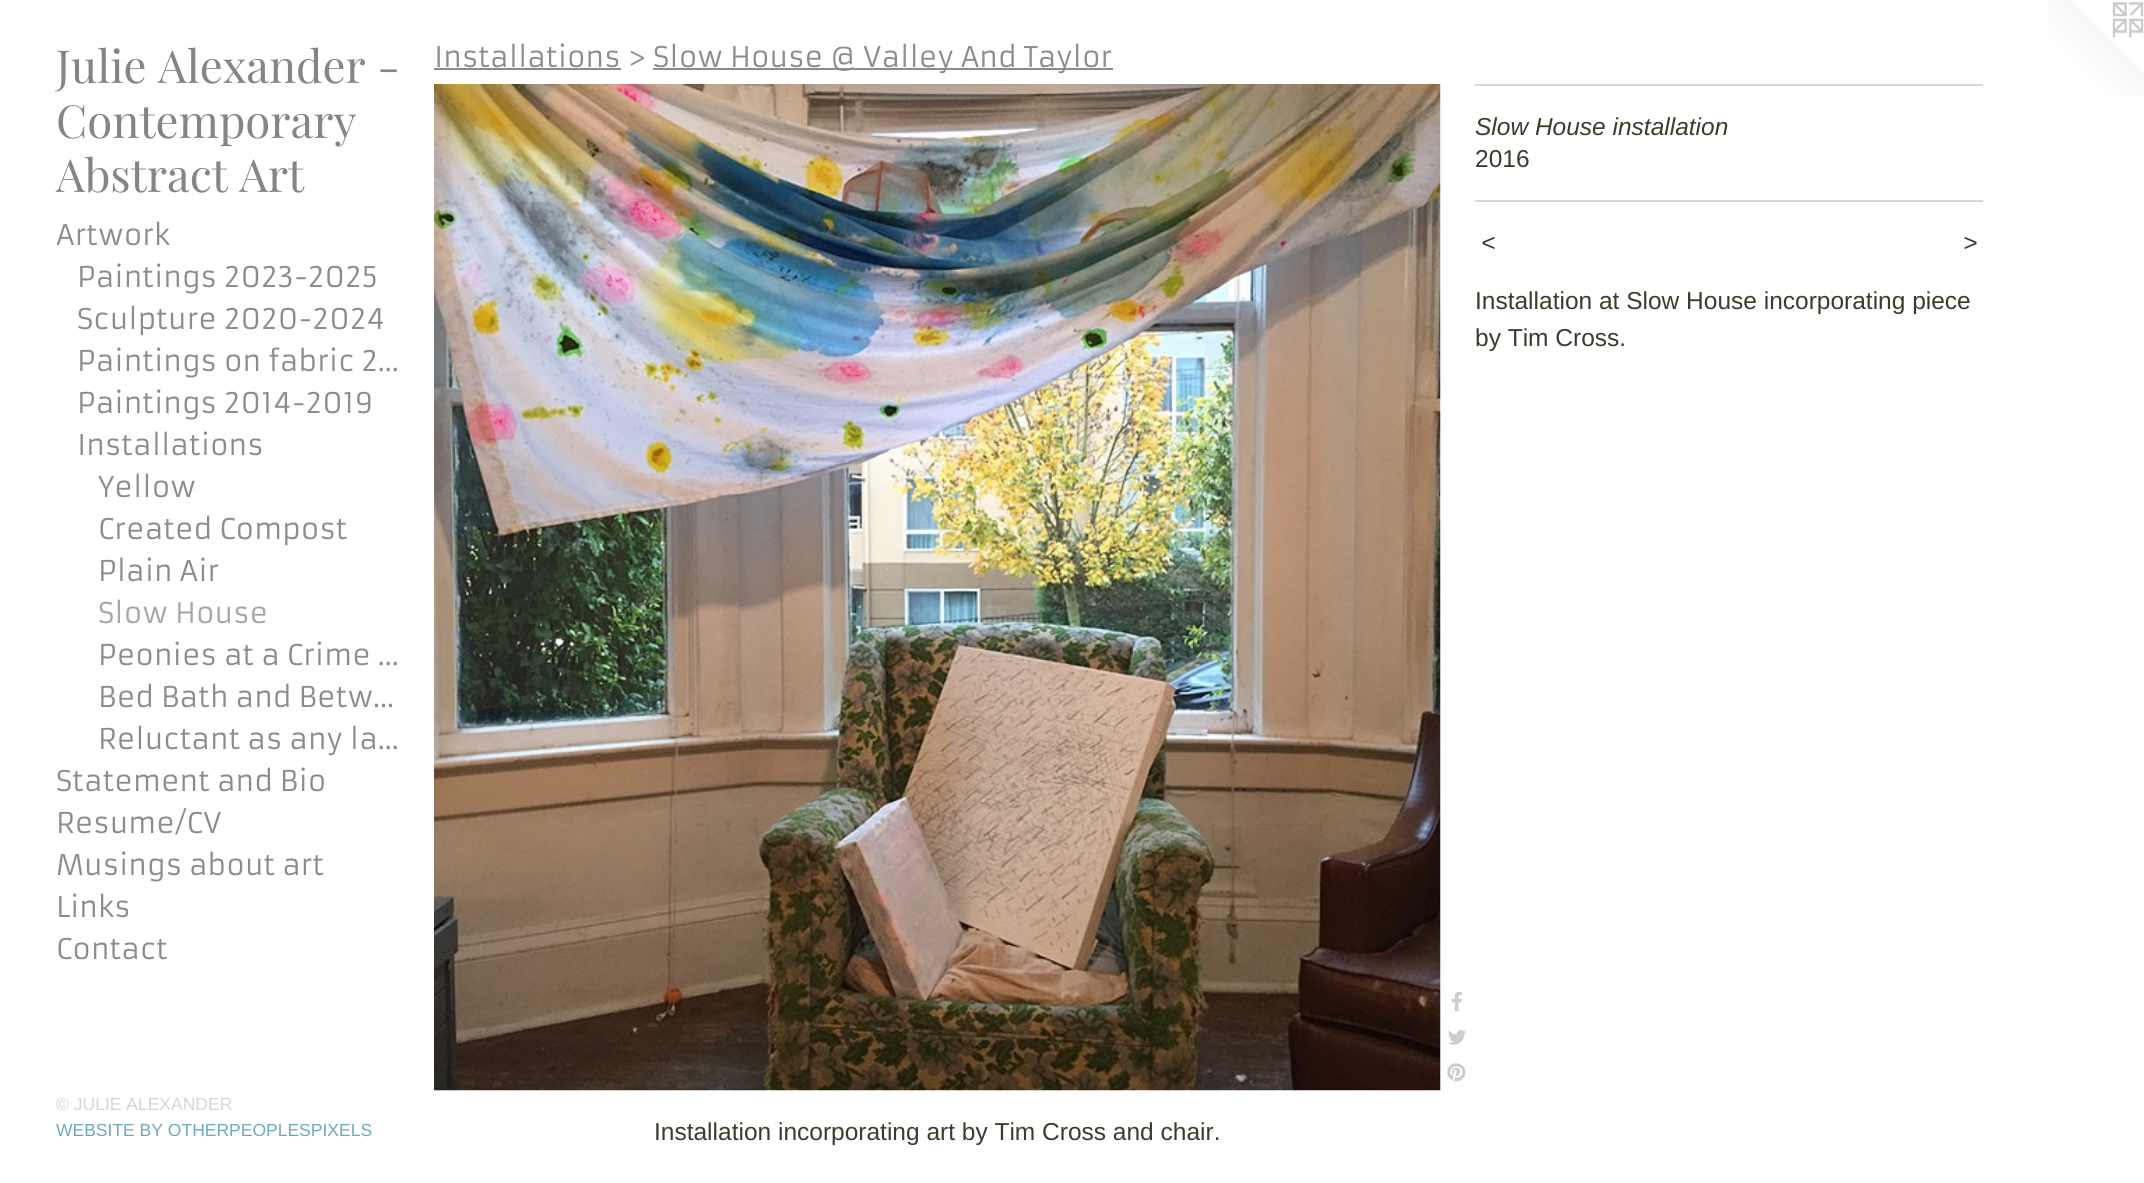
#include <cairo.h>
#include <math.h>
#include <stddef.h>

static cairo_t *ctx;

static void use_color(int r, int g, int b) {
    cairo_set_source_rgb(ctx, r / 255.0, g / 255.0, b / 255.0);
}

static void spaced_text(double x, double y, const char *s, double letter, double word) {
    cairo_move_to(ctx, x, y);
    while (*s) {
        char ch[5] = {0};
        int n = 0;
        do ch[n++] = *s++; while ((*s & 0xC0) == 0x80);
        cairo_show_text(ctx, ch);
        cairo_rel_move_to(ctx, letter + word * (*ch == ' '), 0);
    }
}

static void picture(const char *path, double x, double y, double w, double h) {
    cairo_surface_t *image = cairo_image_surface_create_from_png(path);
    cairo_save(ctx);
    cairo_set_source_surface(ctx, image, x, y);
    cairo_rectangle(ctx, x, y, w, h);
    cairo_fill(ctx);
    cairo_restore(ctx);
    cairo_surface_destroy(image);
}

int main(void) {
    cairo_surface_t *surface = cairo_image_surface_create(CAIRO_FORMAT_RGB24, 2144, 1183);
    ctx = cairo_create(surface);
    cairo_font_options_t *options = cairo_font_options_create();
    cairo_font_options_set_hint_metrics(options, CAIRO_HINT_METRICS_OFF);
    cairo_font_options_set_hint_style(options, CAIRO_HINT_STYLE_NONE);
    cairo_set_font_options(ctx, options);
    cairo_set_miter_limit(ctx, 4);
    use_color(255, 255, 255);
    cairo_paint(ctx);
    cairo_select_font_face(ctx, "Playfair Display", CAIRO_FONT_SLANT_NORMAL, CAIRO_FONT_WEIGHT_NORMAL);
    cairo_set_font_size(ctx, 45.5);
    use_color(133, 133, 133);
    cairo_move_to(ctx, 56, 83);
    cairo_show_text(ctx, "Julie Alexander -");
    cairo_move_to(ctx, 56, 138);
    cairo_show_text(ctx, "Contemporary");
    cairo_move_to(ctx, 56, 192);
    cairo_show_text(ctx, "Abstract Art");
    cairo_select_font_face(ctx, "Armata", CAIRO_FONT_SLANT_NORMAL, CAIRO_FONT_WEIGHT_NORMAL);
    cairo_set_font_size(ctx, 28);
    use_color(140, 140, 140);
    cairo_move_to(ctx, 56, 245);
    cairo_show_text(ctx, "Artwork");
    cairo_move_to(ctx, 77, 287);
    cairo_show_text(ctx, "Paintings 2023-2025");
    cairo_move_to(ctx, 77, 329);
    cairo_show_text(ctx, "Sculpture 2020-2024");
    cairo_move_to(ctx, 77, 371);
    cairo_show_text(ctx, "Paintings on fabric 2…");
    cairo_move_to(ctx, 77, 413);
    cairo_show_text(ctx, "Paintings 2014-2019");
    cairo_move_to(ctx, 77, 455);
    cairo_show_text(ctx, "Installations");
    cairo_move_to(ctx, 98, 497);
    cairo_show_text(ctx, "Yellow");
    cairo_move_to(ctx, 98, 539);
    cairo_show_text(ctx, "Created Compost");
    cairo_move_to(ctx, 98, 581);
    cairo_show_text(ctx, "Plain Air");
    use_color(166, 166, 166);
    cairo_move_to(ctx, 98, 623);
    cairo_show_text(ctx, "Slow House");
    use_color(140, 140, 140);
    cairo_move_to(ctx, 98, 665);
    cairo_show_text(ctx, "Peonies at a Crime …");
    cairo_move_to(ctx, 98, 707);
    cairo_show_text(ctx, "Bed Bath and Betw…");
    cairo_move_to(ctx, 98, 749);
    cairo_show_text(ctx, "Reluctant as any la…");
    cairo_move_to(ctx, 56, 791);
    cairo_show_text(ctx, "Statement and Bio");
    cairo_move_to(ctx, 56, 833);
    cairo_show_text(ctx, "Resume/CV");
    cairo_move_to(ctx, 56, 875);
    cairo_show_text(ctx, "Musings about art");
    cairo_move_to(ctx, 56, 917);
    cairo_show_text(ctx, "Links");
    cairo_move_to(ctx, 56, 959);
    cairo_show_text(ctx, "Contact");
    cairo_select_font_face(ctx, "Liberation Sans", CAIRO_FONT_SLANT_NORMAL, CAIRO_FONT_WEIGHT_NORMAL);
    cairo_set_font_size(ctx, 17.5);
    use_color(214, 214, 214);
    cairo_move_to(ctx, 56, 1110);
    cairo_show_text(ctx, "© JULIE ALEXANDER");
    use_color(112, 168, 192);
    cairo_move_to(ctx, 56, 1136);
    cairo_show_text(ctx, "WEBSITE BY OTHERPEOPLESPIXELS");
    cairo_select_font_face(ctx, "Armata", CAIRO_FONT_SLANT_NORMAL, CAIRO_FONT_WEIGHT_NORMAL);
    cairo_set_font_size(ctx, 28);
    use_color(140, 140, 140);
    cairo_move_to(ctx, 434, 67);
    cairo_show_text(ctx, "Installations >");
    cairo_rectangle(ctx, 434, 68, 187, 2);
    cairo_fill(ctx);
    cairo_rectangle(ctx, 653, 68, 460, 2);
    cairo_fill(ctx);
    cairo_move_to(ctx, 653, 67);
    cairo_show_text(ctx, "Slow House @ Valley And Taylor");
    picture("img1.png", 434, 84, 1007, 1007);
    picture("img2.png", 1451, 991, 11, 21);
    picture("img3.png", 1448, 1029, 18, 16);
    picture("img4.png", 1447, 1063, 19, 19);
    use_color(215, 216, 213);
    cairo_rectangle(ctx, 1475, 84, 508, 2);
    cairo_fill(ctx);
    cairo_select_font_face(ctx, "Liberation Sans", CAIRO_FONT_SLANT_ITALIC, CAIRO_FONT_WEIGHT_NORMAL);
    cairo_set_font_size(ctx, 24.5);
    use_color(57, 61, 46);
    cairo_move_to(ctx, 1475, 135);
    cairo_show_text(ctx, "Slow House installation");
    cairo_select_font_face(ctx, "Liberation Sans", CAIRO_FONT_SLANT_NORMAL, CAIRO_FONT_WEIGHT_NORMAL);
    cairo_move_to(ctx, 1475, 167);
    cairo_show_text(ctx, "2016");
    use_color(215, 216, 213);
    cairo_rectangle(ctx, 1475, 200, 508, 2);
    cairo_fill(ctx);
    cairo_select_font_face(ctx, "Liberation Sans", CAIRO_FONT_SLANT_ITALIC, CAIRO_FONT_WEIGHT_NORMAL);
    use_color(57, 61, 46);
    spaced_text(1481, 251, "<", 2, 0);
    spaced_text(1963, 251, ">", 2, 0);
    cairo_select_font_face(ctx, "Liberation Sans", CAIRO_FONT_SLANT_NORMAL, CAIRO_FONT_WEIGHT_NORMAL);
    cairo_move_to(ctx, 1475, 309);
    cairo_show_text(ctx, "Installation at Slow House incorporating piece");
    cairo_move_to(ctx, 1475, 346);
    cairo_show_text(ctx, "by Tim Cross.");
    cairo_move_to(ctx, 654, 1140);
    cairo_show_text(ctx, "Installation incorporating art by Tim Cross and chair.");
    picture("img5.png", 2048, 0, 96, 96);
    cairo_surface_write_to_png(surface, "result.png");
    cairo_font_options_destroy(options);
    cairo_destroy(ctx);
    cairo_surface_destroy(surface);
    return 0;
}
